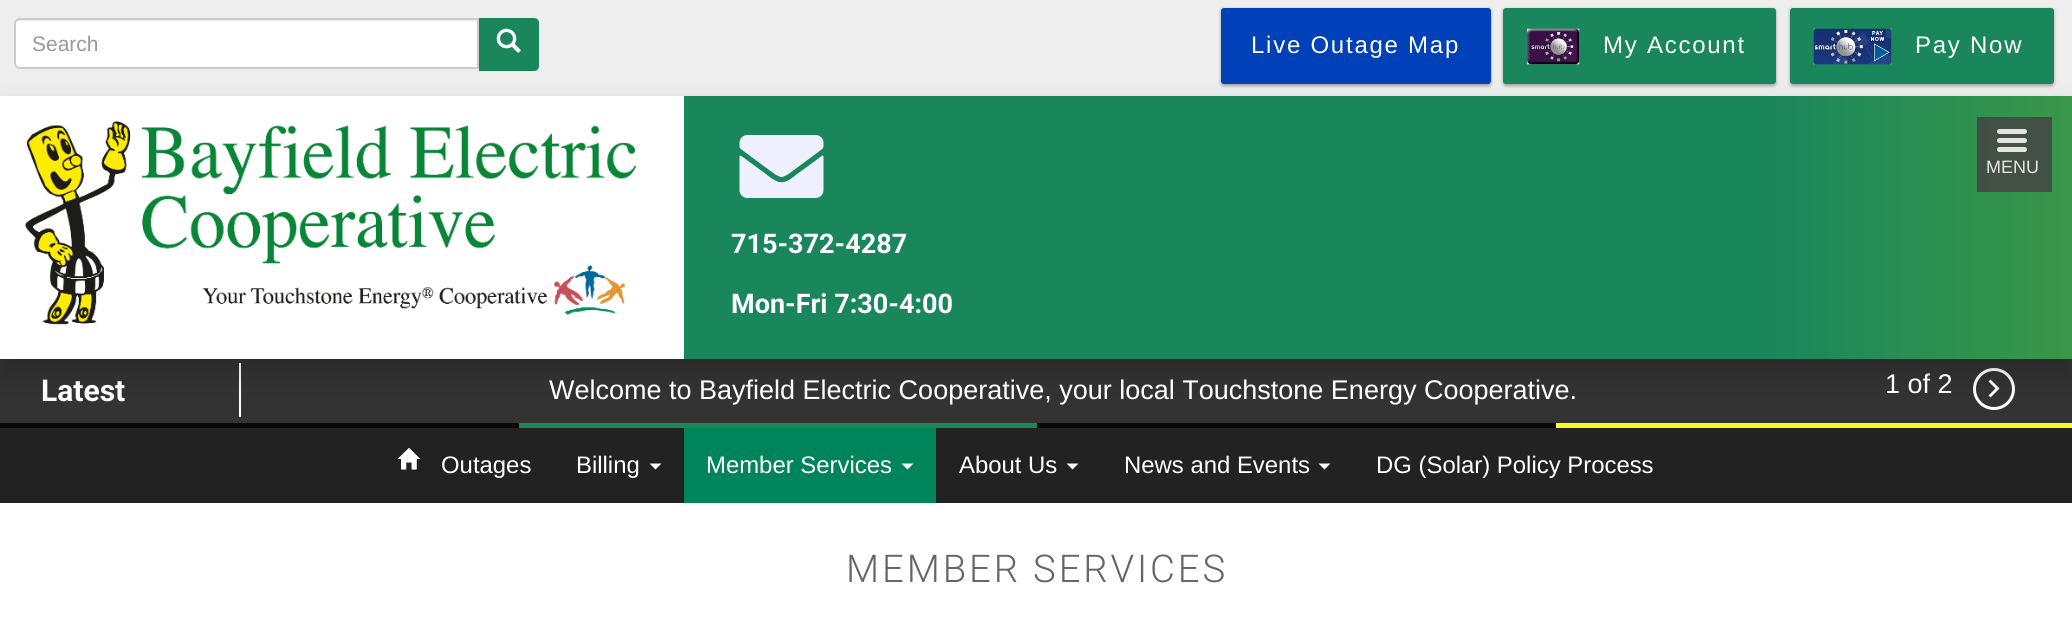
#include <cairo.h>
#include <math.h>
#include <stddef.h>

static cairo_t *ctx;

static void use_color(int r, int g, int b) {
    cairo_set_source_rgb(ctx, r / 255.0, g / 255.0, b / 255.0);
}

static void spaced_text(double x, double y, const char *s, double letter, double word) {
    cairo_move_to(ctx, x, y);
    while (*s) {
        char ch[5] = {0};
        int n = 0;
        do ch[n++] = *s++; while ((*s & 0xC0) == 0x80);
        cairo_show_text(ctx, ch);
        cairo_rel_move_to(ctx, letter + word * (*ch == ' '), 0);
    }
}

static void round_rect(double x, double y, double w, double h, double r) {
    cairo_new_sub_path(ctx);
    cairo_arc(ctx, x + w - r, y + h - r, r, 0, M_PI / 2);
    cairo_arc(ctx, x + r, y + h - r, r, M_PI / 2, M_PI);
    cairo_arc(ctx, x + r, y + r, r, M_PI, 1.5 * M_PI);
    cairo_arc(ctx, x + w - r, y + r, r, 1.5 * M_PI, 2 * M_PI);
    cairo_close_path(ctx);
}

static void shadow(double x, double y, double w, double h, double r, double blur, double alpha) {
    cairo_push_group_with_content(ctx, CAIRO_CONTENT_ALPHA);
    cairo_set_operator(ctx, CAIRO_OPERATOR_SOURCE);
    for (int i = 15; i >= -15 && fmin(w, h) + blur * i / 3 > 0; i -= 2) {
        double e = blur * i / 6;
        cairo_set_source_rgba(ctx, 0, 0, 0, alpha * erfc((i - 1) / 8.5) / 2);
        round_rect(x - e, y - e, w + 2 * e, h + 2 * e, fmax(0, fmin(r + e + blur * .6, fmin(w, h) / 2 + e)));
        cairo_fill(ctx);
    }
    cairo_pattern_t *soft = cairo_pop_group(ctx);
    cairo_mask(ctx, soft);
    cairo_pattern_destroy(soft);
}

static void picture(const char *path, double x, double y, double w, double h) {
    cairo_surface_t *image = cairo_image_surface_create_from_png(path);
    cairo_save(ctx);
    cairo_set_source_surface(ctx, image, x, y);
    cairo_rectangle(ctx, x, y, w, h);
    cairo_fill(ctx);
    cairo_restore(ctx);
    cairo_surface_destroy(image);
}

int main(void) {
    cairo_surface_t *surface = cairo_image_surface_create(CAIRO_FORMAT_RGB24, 2072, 625);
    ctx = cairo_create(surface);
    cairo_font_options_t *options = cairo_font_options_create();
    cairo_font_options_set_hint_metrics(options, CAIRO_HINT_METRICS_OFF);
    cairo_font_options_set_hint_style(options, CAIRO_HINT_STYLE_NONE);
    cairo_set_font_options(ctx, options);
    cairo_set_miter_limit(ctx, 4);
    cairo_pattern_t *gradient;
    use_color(238, 238, 238);
    cairo_paint(ctx);
    use_color(255, 255, 255);
    cairo_new_path(ctx);
    cairo_move_to(ctx, 20, 18);
    cairo_line_to(ctx, 479, 18);
    cairo_line_to(ctx, 479, 69);
    cairo_line_to(ctx, 20, 69);
    cairo_curve_to(ctx, 16.5, 69, 14, 66.5, 14, 63);
    cairo_line_to(ctx, 14, 24);
    cairo_curve_to(ctx, 14, 20.5, 16.5, 18, 20, 18);
    cairo_close_path(ctx);
    cairo_fill(ctx);
    use_color(236, 236, 236);
    cairo_new_path(ctx);
    cairo_move_to(ctx, 20, 21);
    cairo_line_to(ctx, 477, 21);
    cairo_line_to(ctx, 477, 20);
    cairo_line_to(ctx, 20, 20);
    cairo_curve_to(ctx, 17, 20, 15, 23, 15, 26);
    cairo_curve_to(ctx, 15, 23, 17, 21, 20, 21);
    cairo_close_path(ctx);
    cairo_fill(ctx);
    cairo_new_path(ctx);
    cairo_move_to(ctx, 20, 19);
    cairo_line_to(ctx, 478, 19);
    cairo_line_to(ctx, 478, 68);
    cairo_line_to(ctx, 20, 68);
    cairo_curve_to(ctx, 17, 68, 15, 66, 15, 63);
    cairo_line_to(ctx, 15, 24);
    cairo_curve_to(ctx, 15, 21, 17, 19, 20, 19);
    cairo_close_path(ctx);
    use_color(204, 204, 204);
    cairo_stroke(ctx);
    cairo_select_font_face(ctx, "Liberation Sans", CAIRO_FONT_SLANT_NORMAL, CAIRO_FONT_WEIGHT_NORMAL);
    cairo_set_font_size(ctx, 21);
    use_color(153, 153, 153);
    cairo_move_to(ctx, 32, 51);
    cairo_show_text(ctx, "Search");
    use_color(25, 134, 92);
    cairo_new_path(ctx);
    cairo_move_to(ctx, 479, 18);
    cairo_line_to(ctx, 534, 18);
    cairo_curve_to(ctx, 537, 18, 539, 20, 539, 23);
    cairo_line_to(ctx, 539, 66);
    cairo_curve_to(ctx, 539, 69, 537, 71, 534, 71);
    cairo_line_to(ctx, 479, 71);
    cairo_close_path(ctx);
    cairo_fill(ctx);
    picture("img1.png", 496, 28, 25, 25);
    use_color(0, 0, 0);
    shadow(1221, 9, 270, 77, 3, 1.5, 0.24);
    shadow(1221, 9, 270, 77, 3, 2, 0.12);
    use_color(0, 65, 185);
    round_rect(1221, 8, 270, 76, 3);
    cairo_fill(ctx);
    cairo_set_font_size(ctx, 24);
    use_color(255, 255, 255);
    spaced_text(1251, 53, "Live Outage Map", 1.75, 0);
    use_color(0, 0, 0);
    shadow(1503, 9, 273, 77, 3, 1.5, 0.24);
    shadow(1503, 9, 273, 77, 3, 2, 0.12);
    use_color(25, 134, 92);
    round_rect(1503, 8, 273, 76, 3);
    cairo_fill(ctx);
    picture("img2.png", 1527, 28, 53, 37);
    use_color(255, 255, 255);
    spaced_text(1603, 53, "My Account", 1.75, 0);
    use_color(0, 0, 0);
    shadow(1790, 9, 264, 77, 3, 1.5, 0.24);
    shadow(1790, 9, 264, 77, 3, 2, 0.12);
    use_color(25, 134, 92);
    round_rect(1790, 8, 264, 76, 3);
    cairo_fill(ctx);
    picture("img3.png", 1813, 28, 79, 37);
    use_color(255, 255, 255);
    spaced_text(1915, 53, "Pay Now", 1.75, 0);
    use_color(51, 51, 51);
    cairo_rectangle(ctx, 0, 359, 2072, 64);
    cairo_fill(ctx);
    use_color(255, 255, 255);
    cairo_rectangle(ctx, 239, 363, 2, 54);
    cairo_fill(ctx);
    cairo_arc(ctx, 1994, 389, 19.5, 0, 2 * M_PI);
    cairo_set_line_width(ctx, 3);
    cairo_stroke(ctx);
    cairo_new_path(ctx);
    cairo_move_to(ctx, 1988.5, 395.5);
    cairo_line_to(ctx, 1995.5, 388.5);
    cairo_line_to(ctx, 1988.5, 381.5);
    cairo_line_to(ctx, 1990.5, 379.5);
    cairo_line_to(ctx, 1999.5, 388.5);
    cairo_line_to(ctx, 1990.5, 397.5);
    cairo_close_path(ctx);
    cairo_fill(ctx);
    use_color(0, 0, 0);
    shadow(0, 111, 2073, 263, 0, 15, 0.18);
    gradient = cairo_pattern_create_linear(0, 227, 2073, 227);
    cairo_pattern_add_color_stop_rgba(gradient, 0.85, 0.098, 0.525, 0.361, 1);
    cairo_pattern_add_color_stop_rgba(gradient, 1, 0.227, 0.592, 0.286, 1);
    cairo_set_source(ctx, gradient);
    cairo_pattern_destroy(gradient);
    cairo_rectangle(ctx, 684, 96, 1388, 263);
    cairo_fill(ctx);
    gradient = cairo_pattern_create_linear(0, 227, 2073, 227);
    cairo_pattern_add_color_stop_rgba(gradient, 0.85, 0.243, 0.306, 0.282, 1);
    cairo_pattern_add_color_stop_rgba(gradient, 1, 0.263, 0.314, 0.271, 1);
    cairo_set_source(ctx, gradient);
    cairo_pattern_destroy(gradient);
    cairo_rectangle(ctx, 1977, 117, 75, 75);
    cairo_fill(ctx);
    use_color(255, 255, 255);
    cairo_rectangle(ctx, 0, 96, 684, 263);
    cairo_fill(ctx);
    picture("img4.png", 25, 121, 612, 204);
    use_color(227, 229, 227);
    round_rect(1997, 129, 30, 5, 2.5);
    cairo_fill(ctx);
    round_rect(1997, 138, 30, 5, 2.5);
    cairo_fill(ctx);
    round_rect(1997, 147, 30, 5, 2.5);
    cairo_fill(ctx);
    cairo_set_font_size(ctx, 18);
    cairo_move_to(ctx, 1986, 173);
    cairo_show_text(ctx, "MENU");
    picture("img5.png", 739, 135, 85, 63);
    cairo_select_font_face(ctx, "Roboto", CAIRO_FONT_SLANT_NORMAL, CAIRO_FONT_WEIGHT_BOLD);
    cairo_set_font_size(ctx, 27);
    use_color(255, 255, 255);
    cairo_move_to(ctx, 731, 253);
    cairo_show_text(ctx, "715-372-4287");
    cairo_move_to(ctx, 731, 313);
    cairo_show_text(ctx, "Mon-Fri 7:30-4:00");
    cairo_set_font_size(ctx, 30);
    cairo_move_to(ctx, 41, 401);
    cairo_show_text(ctx, "Latest");
    cairo_select_font_face(ctx, "Liberation Sans", CAIRO_FONT_SLANT_NORMAL, CAIRO_FONT_WEIGHT_NORMAL);
    cairo_set_font_size(ctx, 27);
    cairo_move_to(ctx, 549, 399);
    cairo_show_text(ctx, "Welcome to Bayfield Electric Cooperative, your local Touchstone Energy Cooperative.");
    cairo_move_to(ctx, 1885, 393);
    cairo_show_text(ctx, "1 of 2");
    use_color(8, 8, 7);
    cairo_rectangle(ctx, 0, 423, 519, 5);
    cairo_fill(ctx);
    use_color(25, 134, 92);
    cairo_rectangle(ctx, 519, 423, 518, 5);
    cairo_fill(ctx);
    use_color(8, 8, 7);
    cairo_rectangle(ctx, 1037, 423, 519, 5);
    cairo_fill(ctx);
    use_color(249, 250, 30);
    cairo_rectangle(ctx, 1556, 423, 516, 5);
    cairo_fill(ctx);
    use_color(34, 34, 34);
    cairo_rectangle(ctx, 0, 428, 2072, 75);
    cairo_fill(ctx);
    picture("img6.png", 397, 448, 23, 22);
    cairo_set_font_size(ctx, 23.9);
    use_color(255, 255, 255);
    cairo_move_to(ctx, 441, 473);
    cairo_show_text(ctx, "Outages");
    cairo_move_to(ctx, 576, 473);
    cairo_show_text(ctx, "Billing");
    cairo_new_path(ctx);
    cairo_move_to(ctx, 649.5, 463.5);
    cairo_line_to(ctx, 661.5, 463.5);
    cairo_line_to(ctx, 655.5, 469.5);
    cairo_close_path(ctx);
    cairo_fill(ctx);
    use_color(0, 132, 90);
    cairo_rectangle(ctx, 684, 428, 252, 75);
    cairo_fill(ctx);
    use_color(255, 255, 255);
    cairo_move_to(ctx, 706, 473);
    cairo_show_text(ctx, "Member Services");
    cairo_new_path(ctx);
    cairo_move_to(ctx, 901.5, 463.5);
    cairo_line_to(ctx, 913.5, 463.5);
    cairo_line_to(ctx, 907.5, 469.5);
    cairo_close_path(ctx);
    cairo_fill(ctx);
    cairo_move_to(ctx, 959, 473);
    cairo_show_text(ctx, "About Us");
    cairo_new_path(ctx);
    cairo_move_to(ctx, 1066.5, 463.5);
    cairo_line_to(ctx, 1078.5, 463.5);
    cairo_line_to(ctx, 1072.5, 469.5);
    cairo_close_path(ctx);
    cairo_fill(ctx);
    cairo_move_to(ctx, 1124, 473);
    cairo_show_text(ctx, "News and Events");
    cairo_new_path(ctx);
    cairo_move_to(ctx, 1318.5, 463.5);
    cairo_line_to(ctx, 1330.5, 463.5);
    cairo_line_to(ctx, 1324.5, 469.5);
    cairo_close_path(ctx);
    cairo_fill(ctx);
    cairo_move_to(ctx, 1376, 473);
    cairo_show_text(ctx, "DG (Solar) Policy Process");
    cairo_rectangle(ctx, 0, 503, 2072, 122);
    cairo_fill(ctx);
    cairo_select_font_face(ctx, "Roboto Light", CAIRO_FONT_SLANT_NORMAL, CAIRO_FONT_WEIGHT_NORMAL);
    cairo_set_font_size(ctx, 38.25);
    use_color(102, 102, 102);
    spaced_text(846, 582, "MEMBER SERVICES", 2.9, 0);
    cairo_surface_write_to_png(surface, "result.png");
    cairo_font_options_destroy(options);
    cairo_destroy(ctx);
    cairo_surface_destroy(surface);
    return 0;
}
